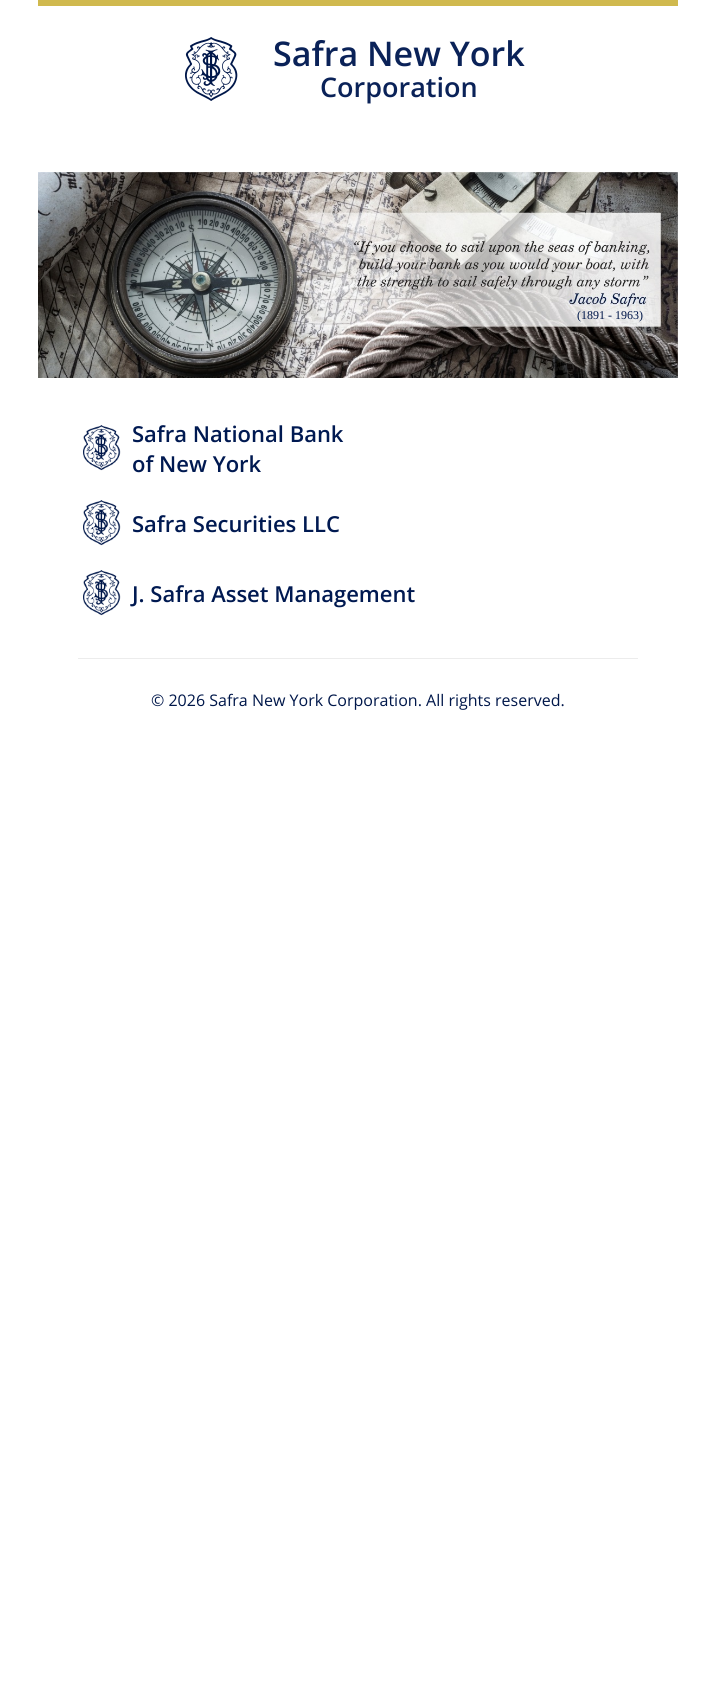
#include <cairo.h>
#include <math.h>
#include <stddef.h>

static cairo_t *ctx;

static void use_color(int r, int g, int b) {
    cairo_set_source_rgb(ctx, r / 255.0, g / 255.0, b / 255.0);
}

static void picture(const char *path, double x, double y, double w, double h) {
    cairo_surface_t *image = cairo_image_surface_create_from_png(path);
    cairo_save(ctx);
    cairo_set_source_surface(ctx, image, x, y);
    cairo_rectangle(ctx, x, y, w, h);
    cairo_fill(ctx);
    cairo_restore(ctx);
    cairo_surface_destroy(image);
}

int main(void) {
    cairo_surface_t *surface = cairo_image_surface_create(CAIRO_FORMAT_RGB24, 716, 1695);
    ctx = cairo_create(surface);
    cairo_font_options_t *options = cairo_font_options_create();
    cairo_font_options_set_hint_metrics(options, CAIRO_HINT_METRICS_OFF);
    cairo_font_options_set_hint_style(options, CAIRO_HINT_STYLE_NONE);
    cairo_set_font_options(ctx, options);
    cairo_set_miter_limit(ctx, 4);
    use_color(255, 255, 255);
    cairo_paint(ctx);
    use_color(208, 185, 78);
    cairo_rectangle(ctx, 38, 0, 640, 6);
    cairo_fill(ctx);
    picture("img1.png", 185, 37, 53, 64);
    cairo_select_font_face(ctx, "Open Sans SemiBold", CAIRO_FONT_SLANT_NORMAL, CAIRO_FONT_WEIGHT_NORMAL);
    cairo_set_font_size(ctx, 34);
    use_color(10, 34, 88);
    cairo_move_to(ctx, 273, 66);
    cairo_show_text(ctx, "Safra New York");
    cairo_set_font_size(ctx, 27);
    cairo_move_to(ctx, 320, 97);
    cairo_show_text(ctx, "Corporation");
    picture("img2.png", 38, 172, 640, 206);
    cairo_select_font_face(ctx, "Liberation Serif", CAIRO_FONT_SLANT_NORMAL, CAIRO_FONT_WEIGHT_NORMAL);
    cairo_set_font_size(ctx, 12);
    use_color(0, 23, 74);
    cairo_move_to(ctx, 577, 319);
    cairo_show_text(ctx, "(1891 - 1963)");
    picture("img3.png", 83, 425, 38, 46);
    cairo_select_font_face(ctx, "Open Sans SemiBold", CAIRO_FONT_SLANT_NORMAL, CAIRO_FONT_WEIGHT_NORMAL);
    cairo_set_font_size(ctx, 22);
    use_color(0, 25, 81);
    cairo_move_to(ctx, 132, 442);
    cairo_show_text(ctx, "Safra National Bank");
    cairo_move_to(ctx, 132, 472);
    cairo_show_text(ctx, "of New York");
    picture("img4.png", 83, 500, 38, 46);
    cairo_move_to(ctx, 132, 532);
    cairo_show_text(ctx, "Safra Securities LLC");
    picture("img4.png", 83, 570, 38, 46);
    cairo_move_to(ctx, 132, 602);
    cairo_show_text(ctx, "J. Safra Asset Management");
    use_color(236, 236, 236);
    cairo_rectangle(ctx, 78, 658, 560, 1);
    cairo_fill(ctx);
    cairo_select_font_face(ctx, "Open Sans", CAIRO_FONT_SLANT_NORMAL, CAIRO_FONT_WEIGHT_NORMAL);
    cairo_set_font_size(ctx, 16);
    use_color(0, 23, 74);
    cairo_move_to(ctx, 151, 706);
    cairo_show_text(ctx, "© 2026 Safra New York Corporation. All rights reserved.");
    cairo_surface_write_to_png(surface, "result.png");
    cairo_font_options_destroy(options);
    cairo_destroy(ctx);
    cairo_surface_destroy(surface);
    return 0;
}
